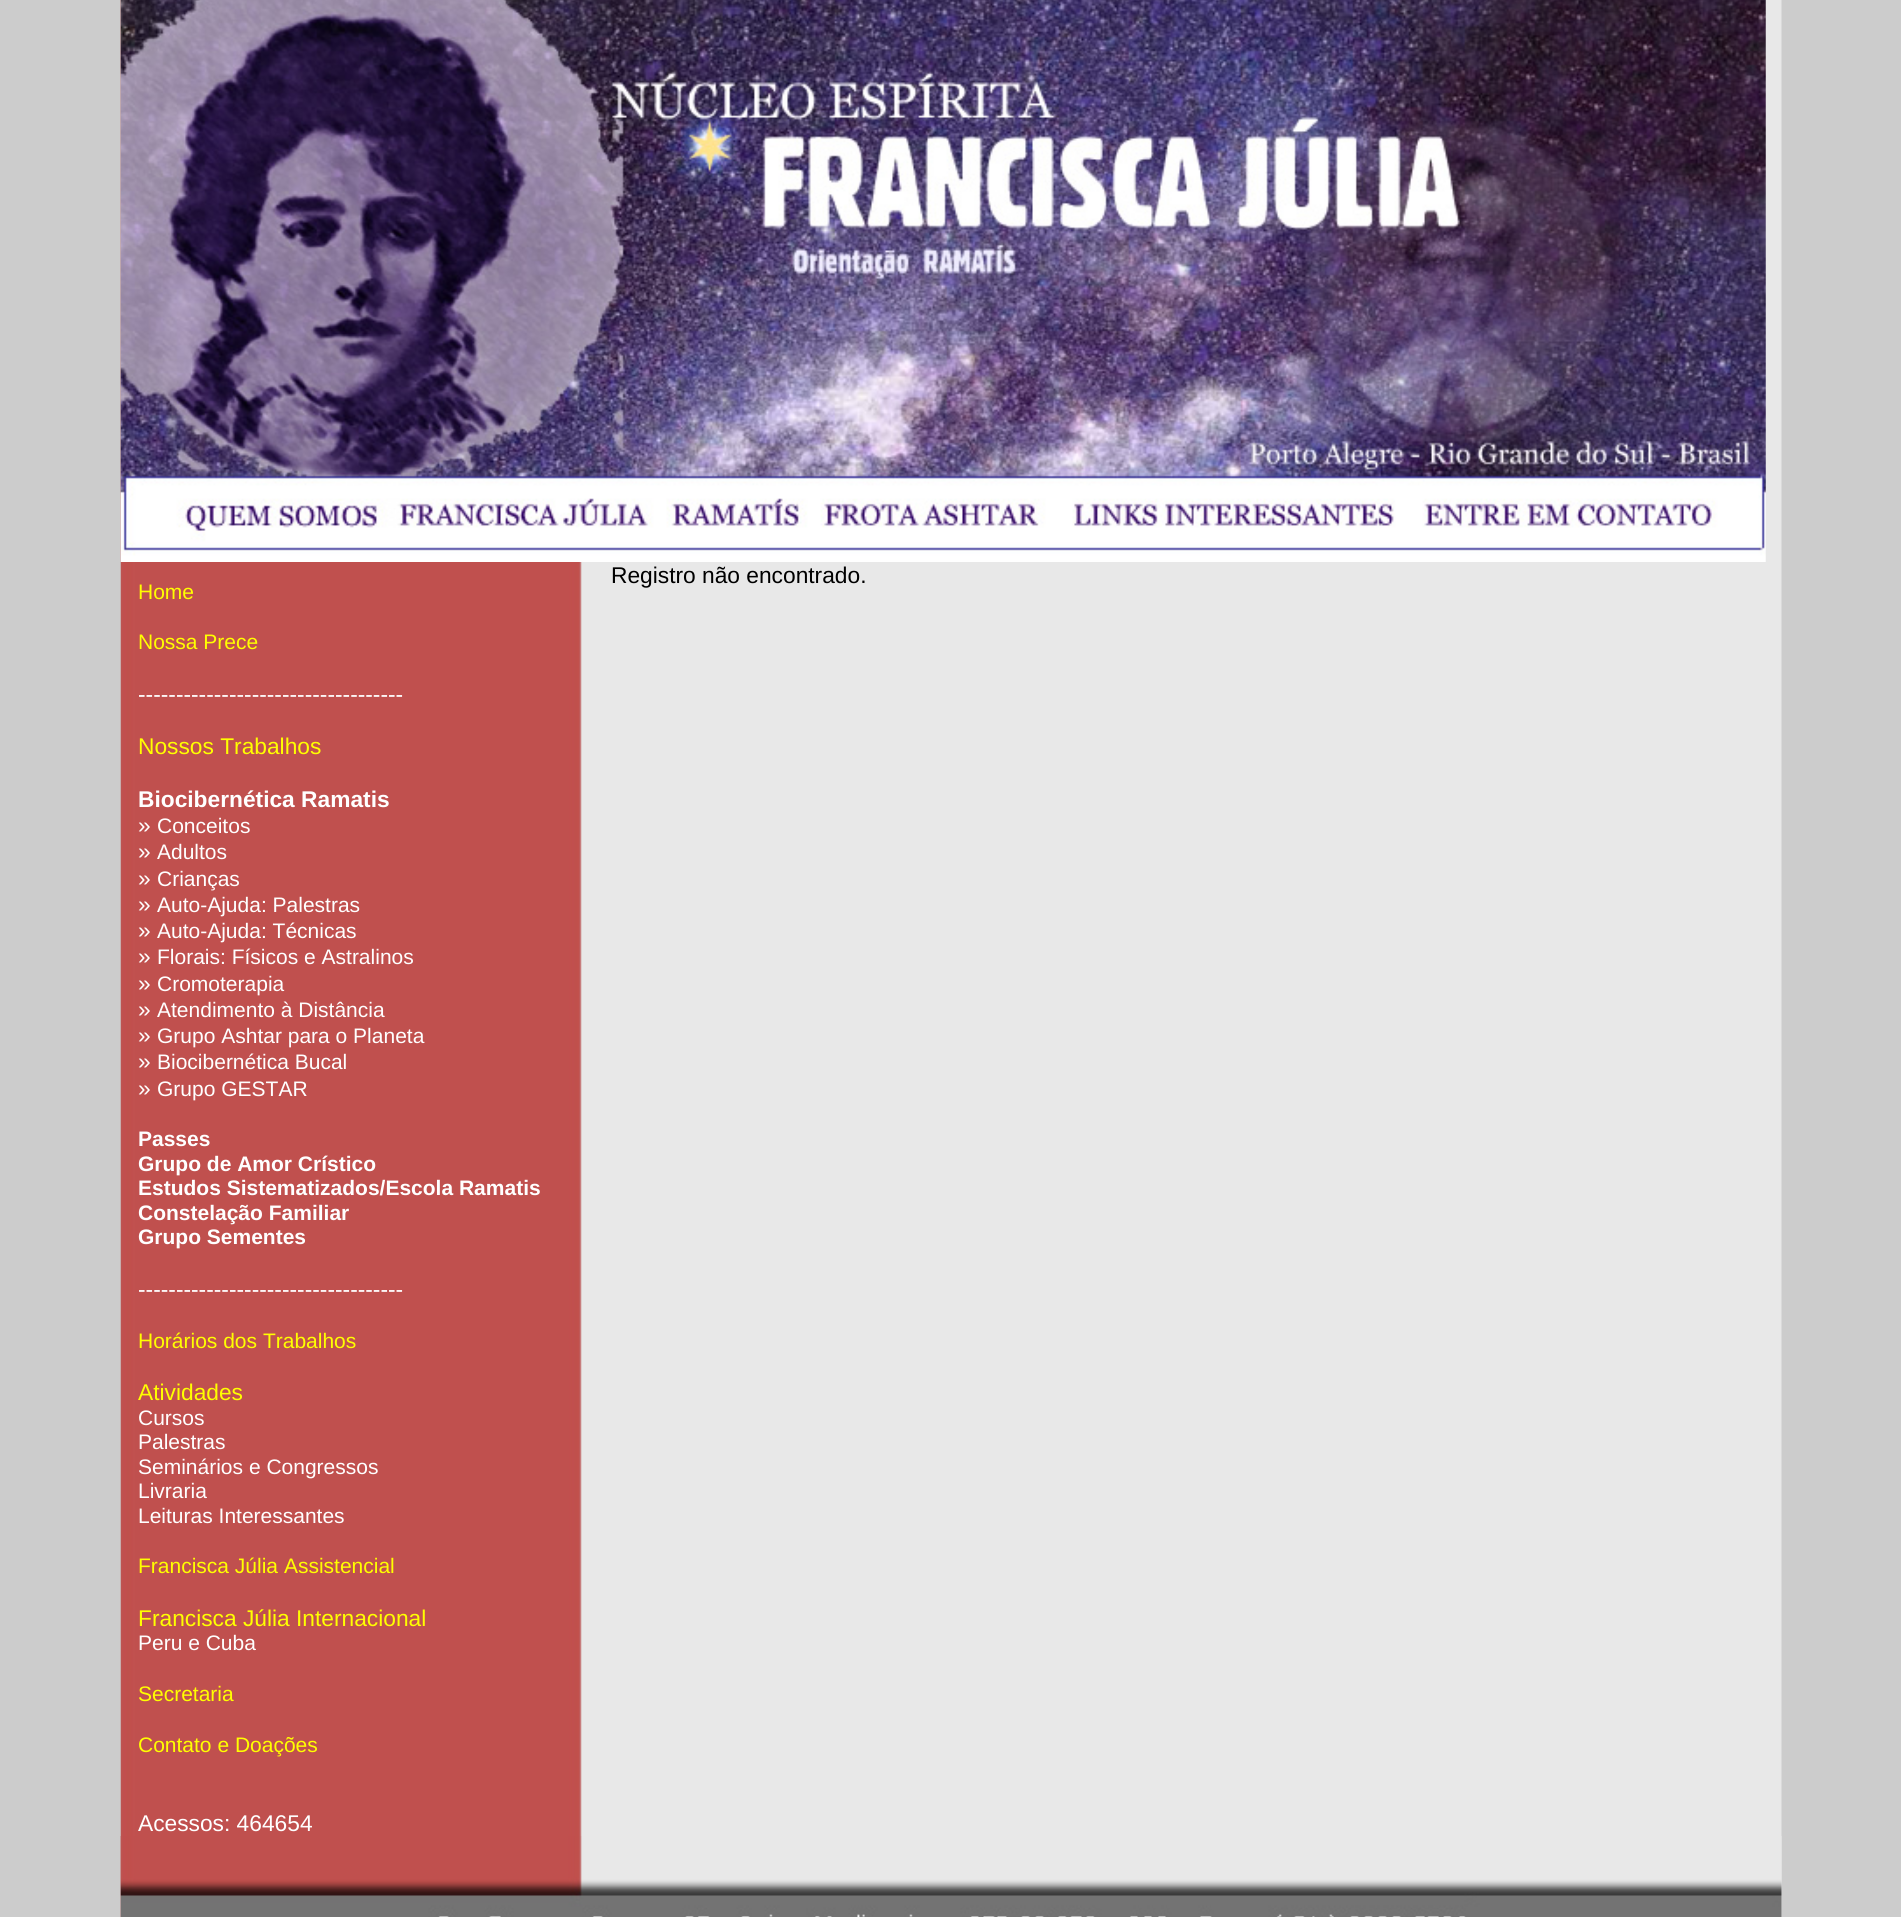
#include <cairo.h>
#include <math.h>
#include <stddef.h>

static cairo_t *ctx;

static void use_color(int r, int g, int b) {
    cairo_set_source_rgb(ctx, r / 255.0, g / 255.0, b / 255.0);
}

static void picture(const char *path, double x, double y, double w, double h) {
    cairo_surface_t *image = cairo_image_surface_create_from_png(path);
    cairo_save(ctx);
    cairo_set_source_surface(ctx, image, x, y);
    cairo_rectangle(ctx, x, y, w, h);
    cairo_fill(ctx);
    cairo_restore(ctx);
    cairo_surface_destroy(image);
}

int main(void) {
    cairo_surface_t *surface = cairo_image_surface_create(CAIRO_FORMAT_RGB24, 1901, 1917);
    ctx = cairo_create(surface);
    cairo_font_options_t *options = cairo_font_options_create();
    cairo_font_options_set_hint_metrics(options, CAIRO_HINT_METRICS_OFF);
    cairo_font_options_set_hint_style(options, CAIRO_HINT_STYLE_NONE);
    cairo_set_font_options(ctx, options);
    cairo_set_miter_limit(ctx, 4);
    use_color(204, 204, 204);
    cairo_paint(ctx);
    picture("img1.png", 120, 0, 1662, 1917);
    picture("img2.png", 120, 0, 1646, 562);
    cairo_select_font_face(ctx, "Liberation Sans", CAIRO_FONT_SLANT_NORMAL, CAIRO_FONT_WEIGHT_NORMAL);
    cairo_set_font_size(ctx, 22.75);
    use_color(0, 0, 0);
    cairo_move_to(ctx, 611, 583);
    cairo_show_text(ctx, "Registro não encontrado.");
    cairo_set_font_size(ctx, 21);
    use_color(255, 255, 0);
    cairo_move_to(ctx, 138, 599);
    cairo_show_text(ctx, "Home");
    cairo_move_to(ctx, 138, 649);
    cairo_show_text(ctx, "Nossa Prece");
    cairo_set_font_size(ctx, 22.75);
    use_color(255, 255, 255);
    cairo_move_to(ctx, 138, 702);
    cairo_show_text(ctx, "-----------------------------------");
    use_color(255, 255, 0);
    cairo_move_to(ctx, 138, 754);
    cairo_show_text(ctx, "Nossos Trabalhos");
    cairo_select_font_face(ctx, "Liberation Sans", CAIRO_FONT_SLANT_NORMAL, CAIRO_FONT_WEIGHT_BOLD);
    use_color(255, 255, 255);
    cairo_move_to(ctx, 138, 807);
    cairo_show_text(ctx, "Biocibernética Ramatis");
    cairo_select_font_face(ctx, "Liberation Sans", CAIRO_FONT_SLANT_NORMAL, CAIRO_FONT_WEIGHT_NORMAL);
    cairo_move_to(ctx, 138, 833);
    cairo_show_text(ctx, "»");
    cairo_set_font_size(ctx, 21);
    cairo_move_to(ctx, 157, 833);
    cairo_show_text(ctx, "Conceitos");
    cairo_set_font_size(ctx, 22.75);
    cairo_move_to(ctx, 138, 859);
    cairo_show_text(ctx, "»");
    cairo_set_font_size(ctx, 21);
    cairo_move_to(ctx, 157, 859);
    cairo_show_text(ctx, "Adultos");
    cairo_set_font_size(ctx, 22.75);
    cairo_move_to(ctx, 138, 886);
    cairo_show_text(ctx, "»");
    cairo_set_font_size(ctx, 21);
    cairo_move_to(ctx, 157, 886);
    cairo_show_text(ctx, "Crianças");
    cairo_set_font_size(ctx, 22.75);
    cairo_move_to(ctx, 138, 912);
    cairo_show_text(ctx, "»");
    cairo_set_font_size(ctx, 21);
    cairo_move_to(ctx, 157, 912);
    cairo_show_text(ctx, "Auto-Ajuda: Palestras");
    cairo_set_font_size(ctx, 22.75);
    cairo_move_to(ctx, 138, 938);
    cairo_show_text(ctx, "»");
    cairo_set_font_size(ctx, 21);
    cairo_move_to(ctx, 157, 938);
    cairo_show_text(ctx, "Auto-Ajuda: Técnicas");
    cairo_set_font_size(ctx, 22.75);
    cairo_move_to(ctx, 138, 964);
    cairo_show_text(ctx, "»");
    cairo_set_font_size(ctx, 21);
    cairo_move_to(ctx, 157, 964);
    cairo_show_text(ctx, "Florais: Físicos e Astralinos");
    cairo_set_font_size(ctx, 22.75);
    cairo_move_to(ctx, 138, 991);
    cairo_show_text(ctx, "»");
    cairo_set_font_size(ctx, 21);
    cairo_move_to(ctx, 157, 991);
    cairo_show_text(ctx, "Cromoterapia");
    cairo_set_font_size(ctx, 22.75);
    cairo_move_to(ctx, 138, 1017);
    cairo_show_text(ctx, "»");
    cairo_set_font_size(ctx, 21);
    cairo_move_to(ctx, 157, 1017);
    cairo_show_text(ctx, "Atendimento à Distância");
    cairo_set_font_size(ctx, 22.75);
    cairo_move_to(ctx, 138, 1043);
    cairo_show_text(ctx, "»");
    cairo_set_font_size(ctx, 21);
    cairo_move_to(ctx, 157, 1043);
    cairo_show_text(ctx, "Grupo Ashtar para o Planeta");
    cairo_set_font_size(ctx, 22.75);
    cairo_move_to(ctx, 138, 1069);
    cairo_show_text(ctx, "»");
    cairo_set_font_size(ctx, 21);
    cairo_move_to(ctx, 157, 1069);
    cairo_show_text(ctx, "Biocibernética Bucal");
    cairo_set_font_size(ctx, 22.75);
    cairo_move_to(ctx, 138, 1096);
    cairo_show_text(ctx, "»");
    cairo_set_font_size(ctx, 21);
    cairo_move_to(ctx, 157, 1096);
    cairo_show_text(ctx, "Grupo GESTAR");
    cairo_select_font_face(ctx, "Liberation Sans", CAIRO_FONT_SLANT_NORMAL, CAIRO_FONT_WEIGHT_BOLD);
    cairo_move_to(ctx, 138, 1146);
    cairo_show_text(ctx, "Passes");
    cairo_move_to(ctx, 138, 1171);
    cairo_show_text(ctx, "Grupo de Amor Crístico");
    cairo_move_to(ctx, 138, 1195);
    cairo_show_text(ctx, "Estudos Sistematizados/Escola Ramatis");
    cairo_move_to(ctx, 138, 1220);
    cairo_show_text(ctx, "Constelação Familiar");
    cairo_move_to(ctx, 138, 1244);
    cairo_show_text(ctx, "Grupo Sementes");
    cairo_select_font_face(ctx, "Liberation Sans", CAIRO_FONT_SLANT_NORMAL, CAIRO_FONT_WEIGHT_NORMAL);
    cairo_set_font_size(ctx, 22.75);
    cairo_move_to(ctx, 138, 1297);
    cairo_show_text(ctx, "-----------------------------------");
    cairo_set_font_size(ctx, 21);
    use_color(255, 255, 0);
    cairo_move_to(ctx, 138, 1348);
    cairo_show_text(ctx, "Horários dos Trabalhos");
    cairo_set_font_size(ctx, 22.75);
    cairo_move_to(ctx, 138, 1400);
    cairo_show_text(ctx, "Atividades");
    cairo_set_font_size(ctx, 21);
    use_color(255, 255, 255);
    cairo_move_to(ctx, 138, 1425);
    cairo_show_text(ctx, "Cursos");
    cairo_move_to(ctx, 138, 1449);
    cairo_show_text(ctx, "Palestras");
    cairo_move_to(ctx, 138, 1474);
    cairo_show_text(ctx, "Seminários e Congressos");
    cairo_move_to(ctx, 138, 1498);
    cairo_show_text(ctx, "Livraria");
    cairo_move_to(ctx, 138, 1523);
    cairo_show_text(ctx, "Leituras Interessantes");
    use_color(255, 255, 0);
    cairo_move_to(ctx, 138, 1573);
    cairo_show_text(ctx, "Francisca Júlia Assistencial");
    cairo_set_font_size(ctx, 22.75);
    cairo_move_to(ctx, 138, 1626);
    cairo_show_text(ctx, "Francisca Júlia Internacional");
    cairo_set_font_size(ctx, 21);
    use_color(255, 255, 255);
    cairo_move_to(ctx, 138, 1650);
    cairo_show_text(ctx, "Peru e Cuba");
    use_color(255, 255, 0);
    cairo_move_to(ctx, 138, 1701);
    cairo_show_text(ctx, "Secretaria");
    cairo_move_to(ctx, 138, 1752);
    cairo_show_text(ctx, "Contato e Doações");
    cairo_set_font_size(ctx, 22.75);
    use_color(255, 255, 255);
    cairo_move_to(ctx, 138, 1831);
    cairo_show_text(ctx, "Acessos: 464654");
    picture("img3.png", 120, 1836, 1662, 81);
    cairo_surface_write_to_png(surface, "result.png");
    cairo_font_options_destroy(options);
    cairo_destroy(ctx);
    cairo_surface_destroy(surface);
    return 0;
}
